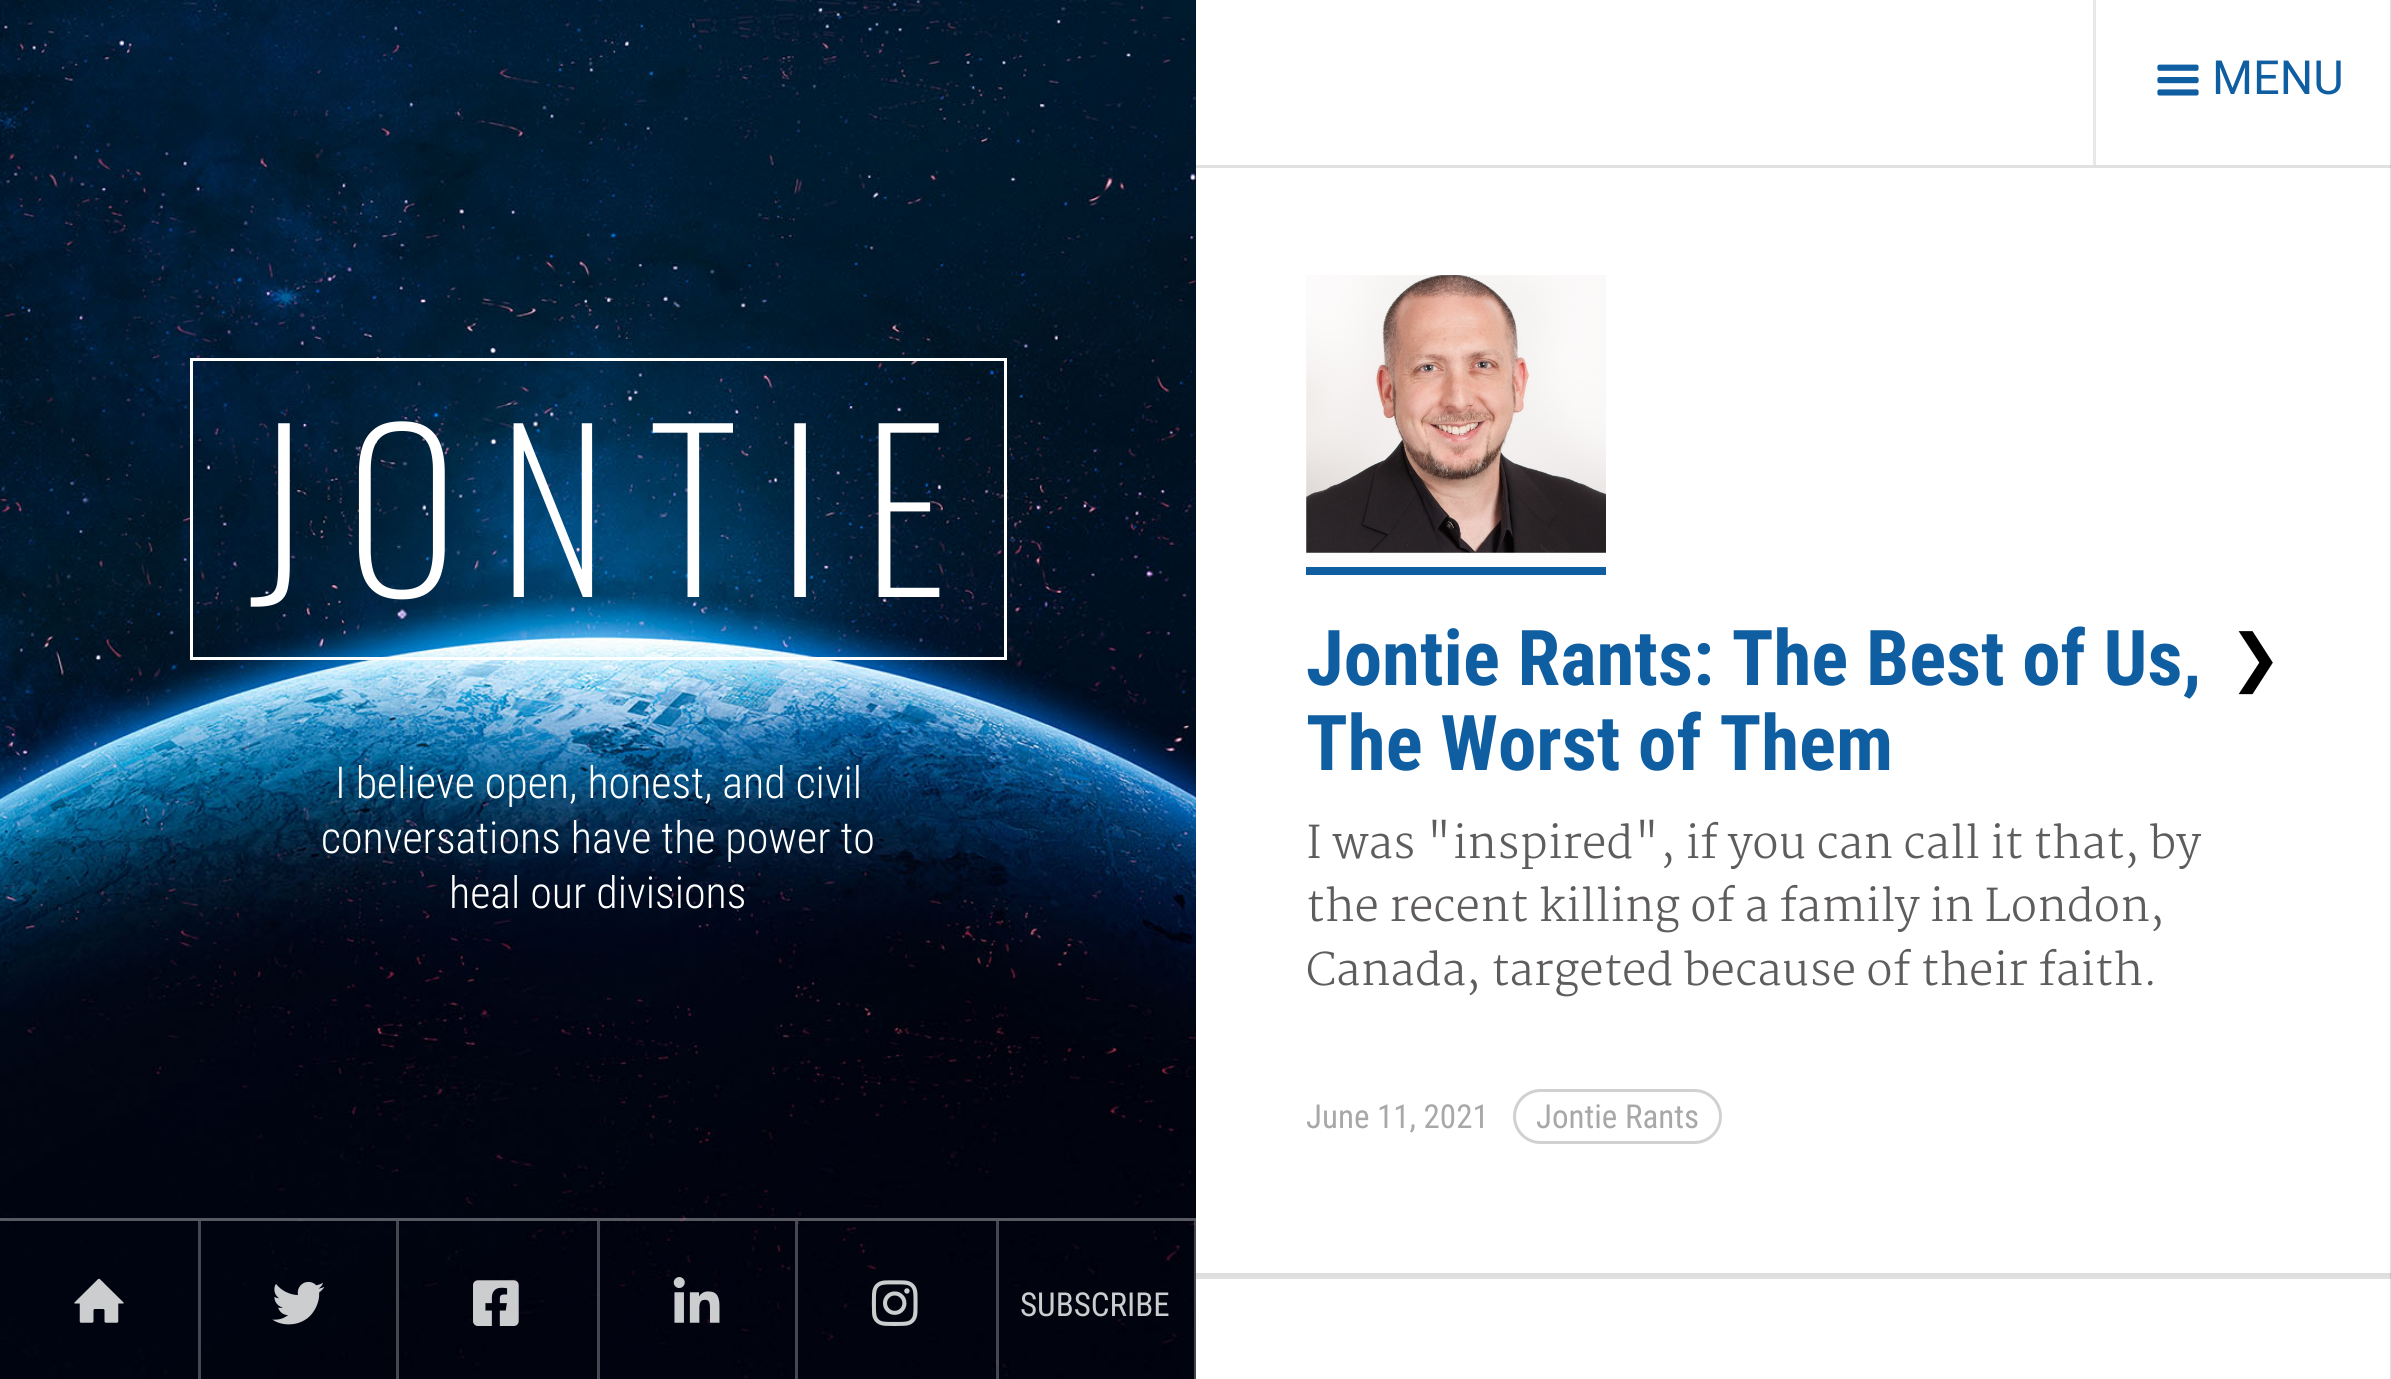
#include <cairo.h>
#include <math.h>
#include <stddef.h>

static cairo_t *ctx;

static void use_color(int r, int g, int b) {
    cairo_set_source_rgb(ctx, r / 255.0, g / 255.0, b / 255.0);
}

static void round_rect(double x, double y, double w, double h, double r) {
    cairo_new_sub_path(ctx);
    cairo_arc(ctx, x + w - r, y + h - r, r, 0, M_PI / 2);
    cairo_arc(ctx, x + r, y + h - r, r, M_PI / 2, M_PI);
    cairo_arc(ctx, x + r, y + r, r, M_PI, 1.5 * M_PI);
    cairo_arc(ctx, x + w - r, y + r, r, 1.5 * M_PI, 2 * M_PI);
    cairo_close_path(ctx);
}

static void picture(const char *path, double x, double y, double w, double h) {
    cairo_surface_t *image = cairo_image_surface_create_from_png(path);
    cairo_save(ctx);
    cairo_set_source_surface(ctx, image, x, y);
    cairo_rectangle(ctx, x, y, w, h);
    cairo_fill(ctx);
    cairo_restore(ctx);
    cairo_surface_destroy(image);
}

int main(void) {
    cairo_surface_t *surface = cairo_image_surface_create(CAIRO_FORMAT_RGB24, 2391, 1379);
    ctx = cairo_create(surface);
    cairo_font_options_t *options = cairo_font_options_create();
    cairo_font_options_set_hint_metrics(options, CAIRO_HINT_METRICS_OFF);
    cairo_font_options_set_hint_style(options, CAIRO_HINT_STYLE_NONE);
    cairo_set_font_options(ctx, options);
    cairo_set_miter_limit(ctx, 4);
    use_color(255, 255, 255);
    cairo_paint(ctx);
    picture("img1.png", 0, 0, 1196, 1379);
    cairo_rectangle(ctx, 191.5, 359.5, 814, 299);
    use_color(255, 255, 255);
    cairo_set_line_width(ctx, 3);
    cairo_stroke(ctx);
    cairo_select_font_face(ctx, "Oswald ExtraLight", CAIRO_FONT_SLANT_NORMAL, CAIRO_FONT_WEIGHT_NORMAL);
    cairo_set_font_size(ctx, 214.5);
    cairo_move_to(ctx, 249, 597);
    cairo_show_text(ctx, "J O N T I E");
    cairo_select_font_face(ctx, "Roboto Condensed Light", CAIRO_FONT_SLANT_NORMAL, CAIRO_FONT_WEIGHT_NORMAL);
    cairo_set_font_size(ctx, 44);
    cairo_move_to(ctx, 335, 798);
    cairo_show_text(ctx, "I believe open, honest, and civil");
    cairo_move_to(ctx, 321, 853);
    cairo_show_text(ctx, "conversations have the power to");
    cairo_move_to(ctx, 449, 908);
    cairo_show_text(ctx, "heal our divisions");
    cairo_set_source_rgba(ctx, 1, 1, 1, 0.34);
    cairo_rectangle(ctx, 0, 1218, 1196, 3);
    cairo_fill(ctx);
    cairo_set_source_rgba(ctx, 1, 1, 1, 0.27);
    cairo_rectangle(ctx, 198, 1221, 3, 158);
    cairo_fill(ctx);
    picture("img2.png", 74, 1278, 50, 45);
    use_color(70, 72, 80);
    cairo_rectangle(ctx, 396, 1221, 3, 158);
    cairo_fill(ctx);
    picture("img3.png", 272, 1281, 53, 44);
    cairo_set_source_rgba(ctx, 1, 1, 1, 0.27);
    cairo_rectangle(ctx, 597, 1221, 3, 158);
    cairo_fill(ctx);
    picture("img4.png", 473, 1280, 46, 46);
    cairo_rectangle(ctx, 795, 1221, 3, 158);
    cairo_fill(ctx);
    picture("img5.png", 673, 1277, 47, 46);
    cairo_rectangle(ctx, 996, 1221, 3, 158);
    cairo_fill(ctx);
    picture("img6.png", 871, 1280, 47, 46);
    cairo_rectangle(ctx, 1194, 1221, 2, 158);
    cairo_fill(ctx);
    cairo_select_font_face(ctx, "Roboto Condensed", CAIRO_FONT_SLANT_NORMAL, CAIRO_FONT_WEIGHT_NORMAL);
    cairo_set_font_size(ctx, 33);
    use_color(204, 205, 207);
    cairo_move_to(ctx, 1020, 1316);
    cairo_show_text(ctx, "SUBSCRIBE");
    use_color(224, 224, 224);
    cairo_rectangle(ctx, 2390, 0, 1, 1379);
    cairo_fill(ctx);
    cairo_set_source_rgba(ctx, 0, 0, 0, 0.12);
    cairo_new_path(ctx);
    cairo_move_to(ctx, 1196, 3);
    cairo_line_to(ctx, 1196, 168);
    cairo_line_to(ctx, 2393, 168);
    cairo_line_to(ctx, 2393, 3);
    cairo_line_to(ctx, 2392, 3);
    cairo_line_to(ctx, 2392, 165);
    cairo_line_to(ctx, 1196, 165);
    cairo_close_path(ctx);
    cairo_fill(ctx);
    use_color(232, 232, 232);
    cairo_rectangle(ctx, 2093, 0, 3, 165);
    cairo_fill(ctx);
    picture("img7.png", 2157, 64, 42, 32);
    cairo_select_font_face(ctx, "Roboto", CAIRO_FONT_SLANT_NORMAL, CAIRO_FONT_WEIGHT_NORMAL);
    cairo_set_font_size(ctx, 47);
    use_color(16, 94, 162);
    cairo_move_to(ctx, 2212, 94);
    cairo_show_text(ctx, "MENU");
    cairo_set_source_rgba(ctx, 0, 0, 0, 0.12);
    cairo_new_path(ctx);
    cairo_move_to(ctx, 1196, 168);
    cairo_line_to(ctx, 1196, 1279);
    cairo_line_to(ctx, 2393, 1279);
    cairo_line_to(ctx, 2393, 168);
    cairo_line_to(ctx, 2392, 168);
    cairo_line_to(ctx, 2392, 1276);
    cairo_line_to(ctx, 1196, 1276);
    cairo_close_path(ctx);
    cairo_fill(ctx);
    cairo_set_source_rgba(ctx, 0, 0, 0, 0.13);
    cairo_rectangle(ctx, 1196, 1273, 1195, 3);
    cairo_fill(ctx);
    use_color(252, 252, 252);
    cairo_rectangle(ctx, 1306, 275, 300, 292);
    cairo_fill(ctx);
    use_color(16, 94, 162);
    cairo_rectangle(ctx, 1306, 567, 300, 8);
    cairo_fill(ctx);
    picture("img8.png", 1306, 275, 300, 278);
    cairo_select_font_face(ctx, "Roboto Condensed", CAIRO_FONT_SLANT_NORMAL, CAIRO_FONT_WEIGHT_BOLD);
    cairo_set_font_size(ctx, 77);
    cairo_move_to(ctx, 1306, 685);
    cairo_show_text(ctx, "Jontie Rants: The Best of Us,");
    cairo_move_to(ctx, 1306, 770);
    cairo_show_text(ctx, "The Worst of Them");
    cairo_select_font_face(ctx, "DejaVu Sans", CAIRO_FONT_SLANT_NORMAL, CAIRO_FONT_WEIGHT_NORMAL);
    cairo_set_font_size(ctx, 63);
    use_color(0, 0, 0);
    cairo_move_to(ctx, 2229, 679);
    cairo_show_text(ctx, "❯");
    cairo_select_font_face(ctx, "Martel Light", CAIRO_FONT_SLANT_NORMAL, CAIRO_FONT_WEIGHT_NORMAL);
    cairo_set_font_size(ctx, 44);
    use_color(95, 92, 92);
    cairo_move_to(ctx, 1306, 858);
    cairo_show_text(ctx, "I was \"inspired\", if you can call it that, by");
    cairo_move_to(ctx, 1306, 921);
    cairo_show_text(ctx, "the recent killing of a family in London,");
    cairo_move_to(ctx, 1306, 985);
    cairo_show_text(ctx, "Canada, targeted because of their faith.");
    cairo_select_font_face(ctx, "Roboto Condensed", CAIRO_FONT_SLANT_NORMAL, CAIRO_FONT_WEIGHT_NORMAL);
    cairo_set_font_size(ctx, 33);
    use_color(168, 168, 168);
    cairo_move_to(ctx, 1306, 1128);
    cairo_show_text(ctx, "June 11, 2021");
    round_rect(1514.5, 1090.5, 206, 52, 26);
    use_color(209, 209, 209);
    cairo_stroke(ctx);
    use_color(168, 168, 168);
    cairo_move_to(ctx, 1536, 1128);
    cairo_show_text(ctx, "Jontie Rants");
    cairo_surface_write_to_png(surface, "result.png");
    cairo_font_options_destroy(options);
    cairo_destroy(ctx);
    cairo_surface_destroy(surface);
    return 0;
}
